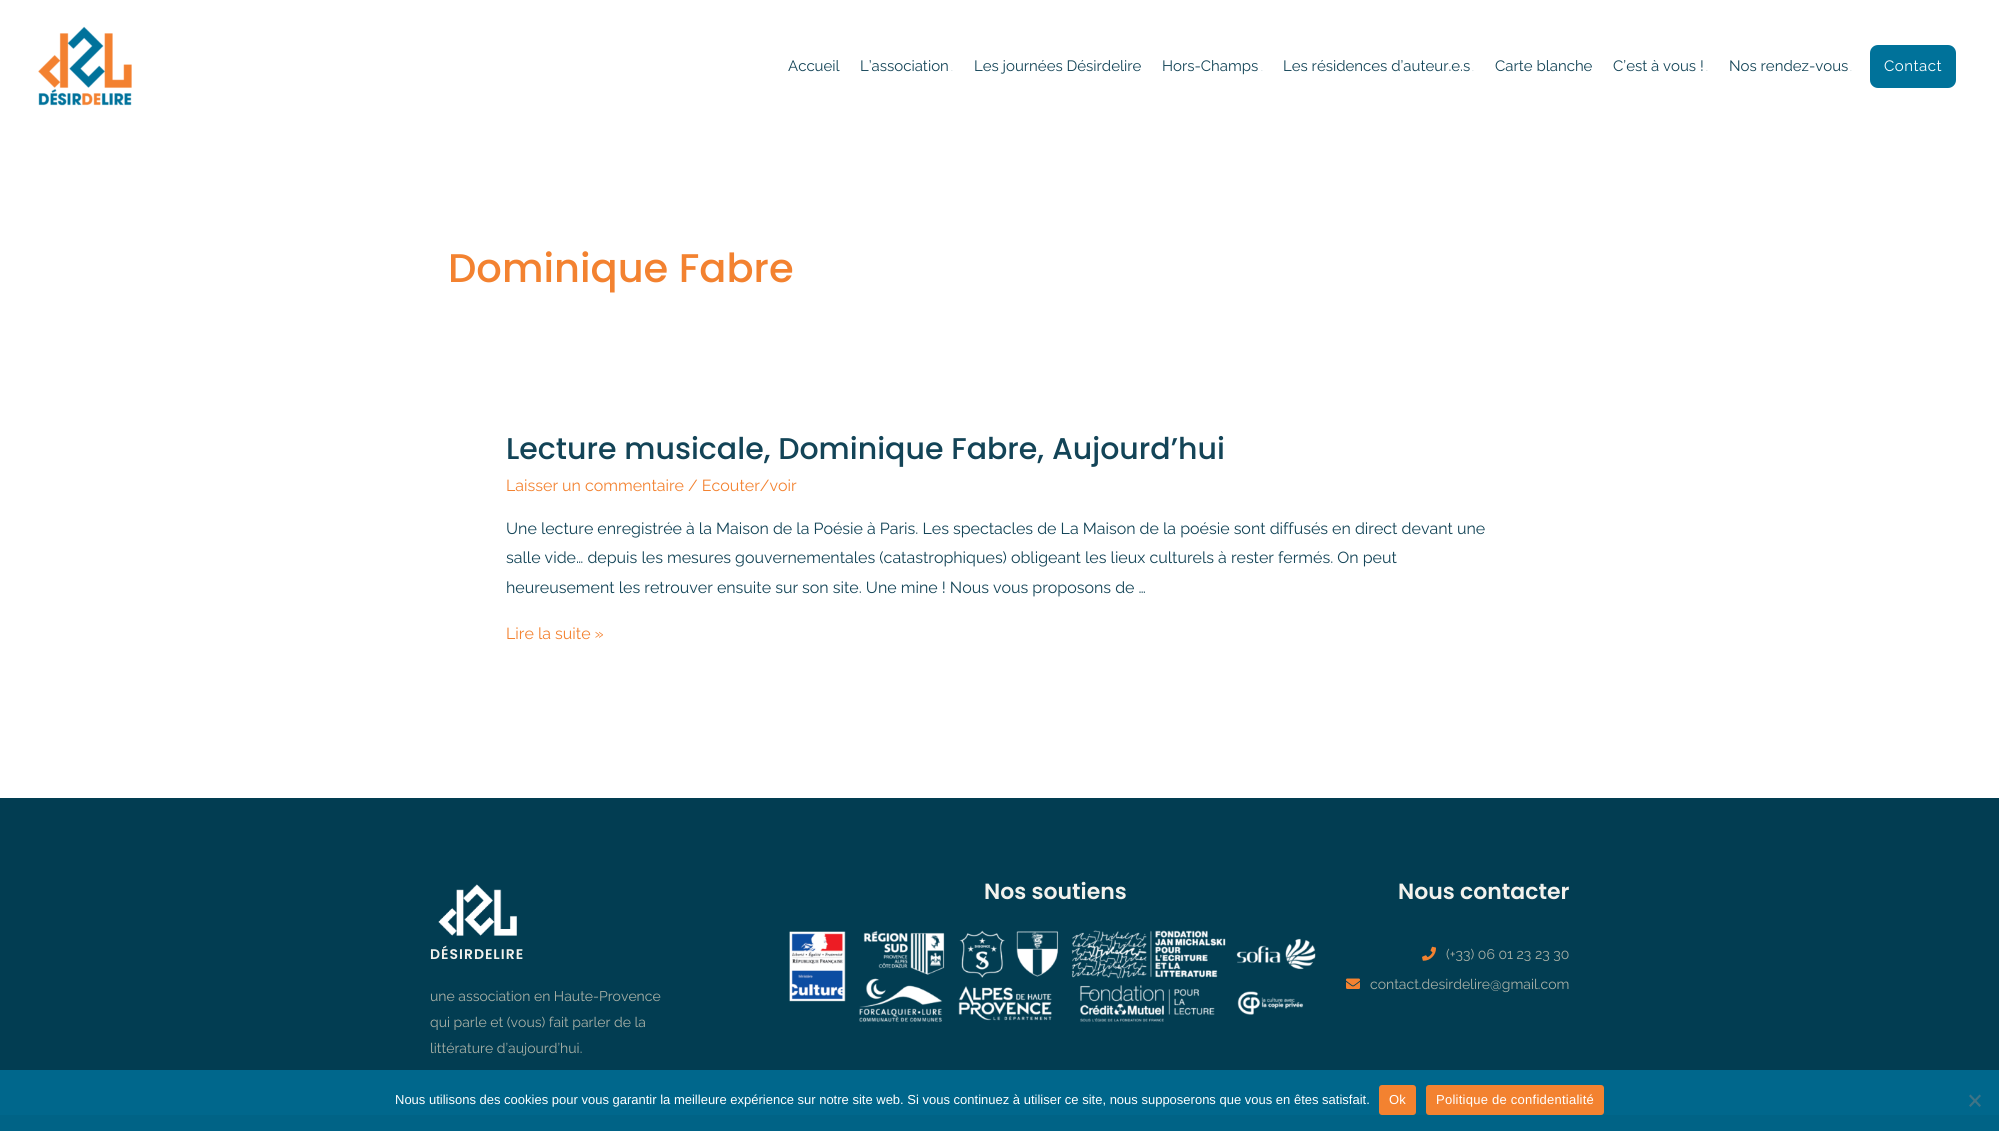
#include <cairo.h>
#include <math.h>
#include <stddef.h>

static cairo_t *ctx;

static void use_color(int r, int g, int b) {
    cairo_set_source_rgb(ctx, r / 255.0, g / 255.0, b / 255.0);
}

static void spaced_text(double x, double y, const char *s, double letter, double word) {
    cairo_move_to(ctx, x, y);
    while (*s) {
        char ch[5] = {0};
        int n = 0;
        do ch[n++] = *s++; while ((*s & 0xC0) == 0x80);
        cairo_show_text(ctx, ch);
        cairo_rel_move_to(ctx, letter + word * (*ch == ' '), 0);
    }
}

static void round_rect(double x, double y, double w, double h, double r) {
    cairo_new_sub_path(ctx);
    cairo_arc(ctx, x + w - r, y + h - r, r, 0, M_PI / 2);
    cairo_arc(ctx, x + r, y + h - r, r, M_PI / 2, M_PI);
    cairo_arc(ctx, x + r, y + r, r, M_PI, 1.5 * M_PI);
    cairo_arc(ctx, x + w - r, y + r, r, 1.5 * M_PI, 2 * M_PI);
    cairo_close_path(ctx);
}

static void picture(const char *path, double x, double y, double w, double h) {
    cairo_surface_t *image = cairo_image_surface_create_from_png(path);
    cairo_save(ctx);
    cairo_set_source_surface(ctx, image, x, y);
    cairo_rectangle(ctx, x, y, w, h);
    cairo_fill(ctx);
    cairo_restore(ctx);
    cairo_surface_destroy(image);
}

int main(void) {
    cairo_surface_t *surface = cairo_image_surface_create(CAIRO_FORMAT_RGB24, 1999, 1131);
    ctx = cairo_create(surface);
    cairo_font_options_t *options = cairo_font_options_create();
    cairo_font_options_set_hint_metrics(options, CAIRO_HINT_METRICS_OFF);
    cairo_font_options_set_hint_style(options, CAIRO_HINT_STYLE_NONE);
    cairo_set_font_options(ctx, options);
    cairo_set_miter_limit(ctx, 4);
    use_color(255, 255, 255);
    cairo_paint(ctx);
    picture("img1.png", 38, 26, 94, 80);
    cairo_select_font_face(ctx, "Raleway Thin", CAIRO_FONT_SLANT_NORMAL, CAIRO_FONT_WEIGHT_NORMAL);
    cairo_set_font_size(ctx, 15);
    use_color(19, 68, 87);
    cairo_move_to(ctx, 788, 71);
    cairo_show_text(ctx, "Accueil");
    cairo_move_to(ctx, 860, 71);
    cairo_show_text(ctx, "L’association");
    picture("img2.png", 951, 70, 2, 1);
    cairo_move_to(ctx, 974, 71);
    cairo_show_text(ctx, "Les journées Désirdelire");
    cairo_move_to(ctx, 1162, 71);
    cairo_show_text(ctx, "Hors-Champs");
    picture("img2.png", 1261, 70, 2, 1);
    cairo_move_to(ctx, 1283, 71);
    cairo_show_text(ctx, "Les résidences d’auteur.e.s");
    picture("img2.png", 1472, 70, 2, 1);
    cairo_move_to(ctx, 1495, 71);
    cairo_show_text(ctx, "Carte blanche");
    cairo_move_to(ctx, 1613, 71);
    cairo_show_text(ctx, "C’est à vous !");
    picture("img2.png", 1706, 70, 2, 1);
    cairo_move_to(ctx, 1729, 71);
    cairo_show_text(ctx, "Nos rendez-vous");
    picture("img2.png", 1850, 70, 2, 1);
    use_color(0, 114, 154);
    round_rect(1870, 45, 86, 43, 8);
    cairo_fill(ctx);
    use_color(255, 255, 255);
    spaced_text(1884, 71, "Contact", 0.5, 0);
    cairo_select_font_face(ctx, "Poppins Medium", CAIRO_FONT_SLANT_NORMAL, CAIRO_FONT_WEIGHT_NORMAL);
    cairo_set_font_size(ctx, 40);
    use_color(243, 130, 48);
    cairo_move_to(ctx, 448, 282);
    cairo_show_text(ctx, "Dominique Fabre");
    cairo_set_font_size(ctx, 30);
    use_color(19, 68, 87);
    cairo_move_to(ctx, 506, 459);
    cairo_show_text(ctx, "Lecture musicale, Dominique Fabre, Aujourd’hui");
    cairo_select_font_face(ctx, "Raleway Thin", CAIRO_FONT_SLANT_NORMAL, CAIRO_FONT_WEIGHT_NORMAL);
    cairo_set_font_size(ctx, 16);
    use_color(243, 130, 48);
    cairo_move_to(ctx, 506, 491);
    cairo_show_text(ctx, "Laisser un commentaire / Ecouter/voir");
    use_color(19, 68, 87);
    cairo_move_to(ctx, 506, 534);
    cairo_show_text(ctx, "Une lecture enregistrée à la Maison de la Poésie à Paris. Les spectacles de La Maison de la poésie sont diffusés en direct devant une");
    cairo_move_to(ctx, 506, 563);
    cairo_show_text(ctx, "salle vide… depuis les mesures gouvernementales (catastrophiques) obligeant les lieux culturels à rester fermés. On peut");
    cairo_move_to(ctx, 506, 593);
    cairo_show_text(ctx, "heureusement les retrouver ensuite sur son site. Une mine ! Nous vous proposons de …");
    use_color(243, 130, 48);
    cairo_move_to(ctx, 506, 639);
    cairo_show_text(ctx, "Lire la suite »");
    use_color(2, 61, 82);
    cairo_rectangle(ctx, 0, 798, 1999, 272);
    cairo_fill(ctx);
    use_color(0, 103, 140);
    cairo_rectangle(ctx, 0, 1070, 1999, 45);
    cairo_fill(ctx);
    picture("img3.png", 438, 884, 79, 52);
    cairo_select_font_face(ctx, "Poppins SemiBold", CAIRO_FONT_SLANT_NORMAL, CAIRO_FONT_WEIGHT_NORMAL);
    cairo_set_font_size(ctx, 14);
    use_color(243, 242, 237);
    spaced_text(430, 959, "DÉSIRDELIRE", 1, 0);
    cairo_select_font_face(ctx, "Raleway Thin", CAIRO_FONT_SLANT_NORMAL, CAIRO_FONT_WEIGHT_NORMAL);
    use_color(168, 176, 166);
    cairo_move_to(ctx, 430, 1001);
    cairo_show_text(ctx, "une association en Haute-Provence");
    cairo_move_to(ctx, 430, 1027);
    cairo_show_text(ctx, "qui parle et (vous) fait parler de la");
    cairo_move_to(ctx, 430, 1053);
    cairo_show_text(ctx, "littérature d’aujourd’hui.");
    cairo_select_font_face(ctx, "Poppins SemiBold", CAIRO_FONT_SLANT_NORMAL, CAIRO_FONT_WEIGHT_NORMAL);
    cairo_set_font_size(ctx, 22);
    use_color(243, 242, 237);
    cairo_move_to(ctx, 984, 899);
    cairo_show_text(ctx, "Nos soutiens");
    picture("img4.png", 789, 930, 527, 92);
    cairo_move_to(ctx, 1398, 899);
    cairo_show_text(ctx, "Nous contacter");
    picture("img5.png", 1422, 946, 14, 15);
    cairo_select_font_face(ctx, "Raleway Thin", CAIRO_FONT_SLANT_NORMAL, CAIRO_FONT_WEIGHT_NORMAL);
    cairo_set_font_size(ctx, 14);
    use_color(168, 176, 166);
    cairo_move_to(ctx, 1446, 959);
    cairo_show_text(ctx, "(+33) 06 01 23 23 30");
    picture("img6.png", 1346, 978, 14, 11);
    cairo_move_to(ctx, 1370, 989);
    cairo_show_text(ctx, "contact.desirdelire@gmail.com");
    use_color(0, 99, 134);
    cairo_rectangle(ctx, 0, 1115, 1999, 16);
    cairo_fill(ctx);
    cairo_select_font_face(ctx, "Liberation Sans", CAIRO_FONT_SLANT_NORMAL, CAIRO_FONT_WEIGHT_NORMAL);
    cairo_set_font_size(ctx, 13);
    use_color(255, 255, 255);
    cairo_move_to(ctx, 395, 1104);
    cairo_show_text(ctx, "Nous utilisons des cookies pour vous garantir la meilleure expérience sur notre site web. Si vous continuez à utiliser ce site, nous supposerons que vous en êtes satisfait.");
    use_color(243, 130, 48);
    round_rect(1379, 1085, 37, 30, 3);
    cairo_fill(ctx);
    use_color(255, 255, 255);
    spaced_text(1389, 1104, "Ok", 0.25, 0);
    use_color(243, 130, 48);
    round_rect(1426, 1085, 178, 30, 3);
    cairo_fill(ctx);
    use_color(255, 255, 255);
    spaced_text(1436, 1104, "Politique de confidentialité", 0.25, 0);
    use_color(64, 116, 134);
    cairo_new_path(ctx);
    cairo_move_to(ctx, 1979.5, 1094.5);
    cairo_line_to(ctx, 1981, 1096);
    cairo_line_to(ctx, 1970.5, 1107);
    cairo_line_to(ctx, 1969, 1105.5);
    cairo_close_path(ctx);
    cairo_fill(ctx);
    cairo_new_path(ctx);
    cairo_move_to(ctx, 1969, 1096);
    cairo_line_to(ctx, 1970.5, 1094.5);
    cairo_line_to(ctx, 1981, 1105.5);
    cairo_line_to(ctx, 1979.5, 1107);
    cairo_close_path(ctx);
    cairo_fill(ctx);
    cairo_surface_write_to_png(surface, "result.png");
    cairo_font_options_destroy(options);
    cairo_destroy(ctx);
    cairo_surface_destroy(surface);
    return 0;
}
